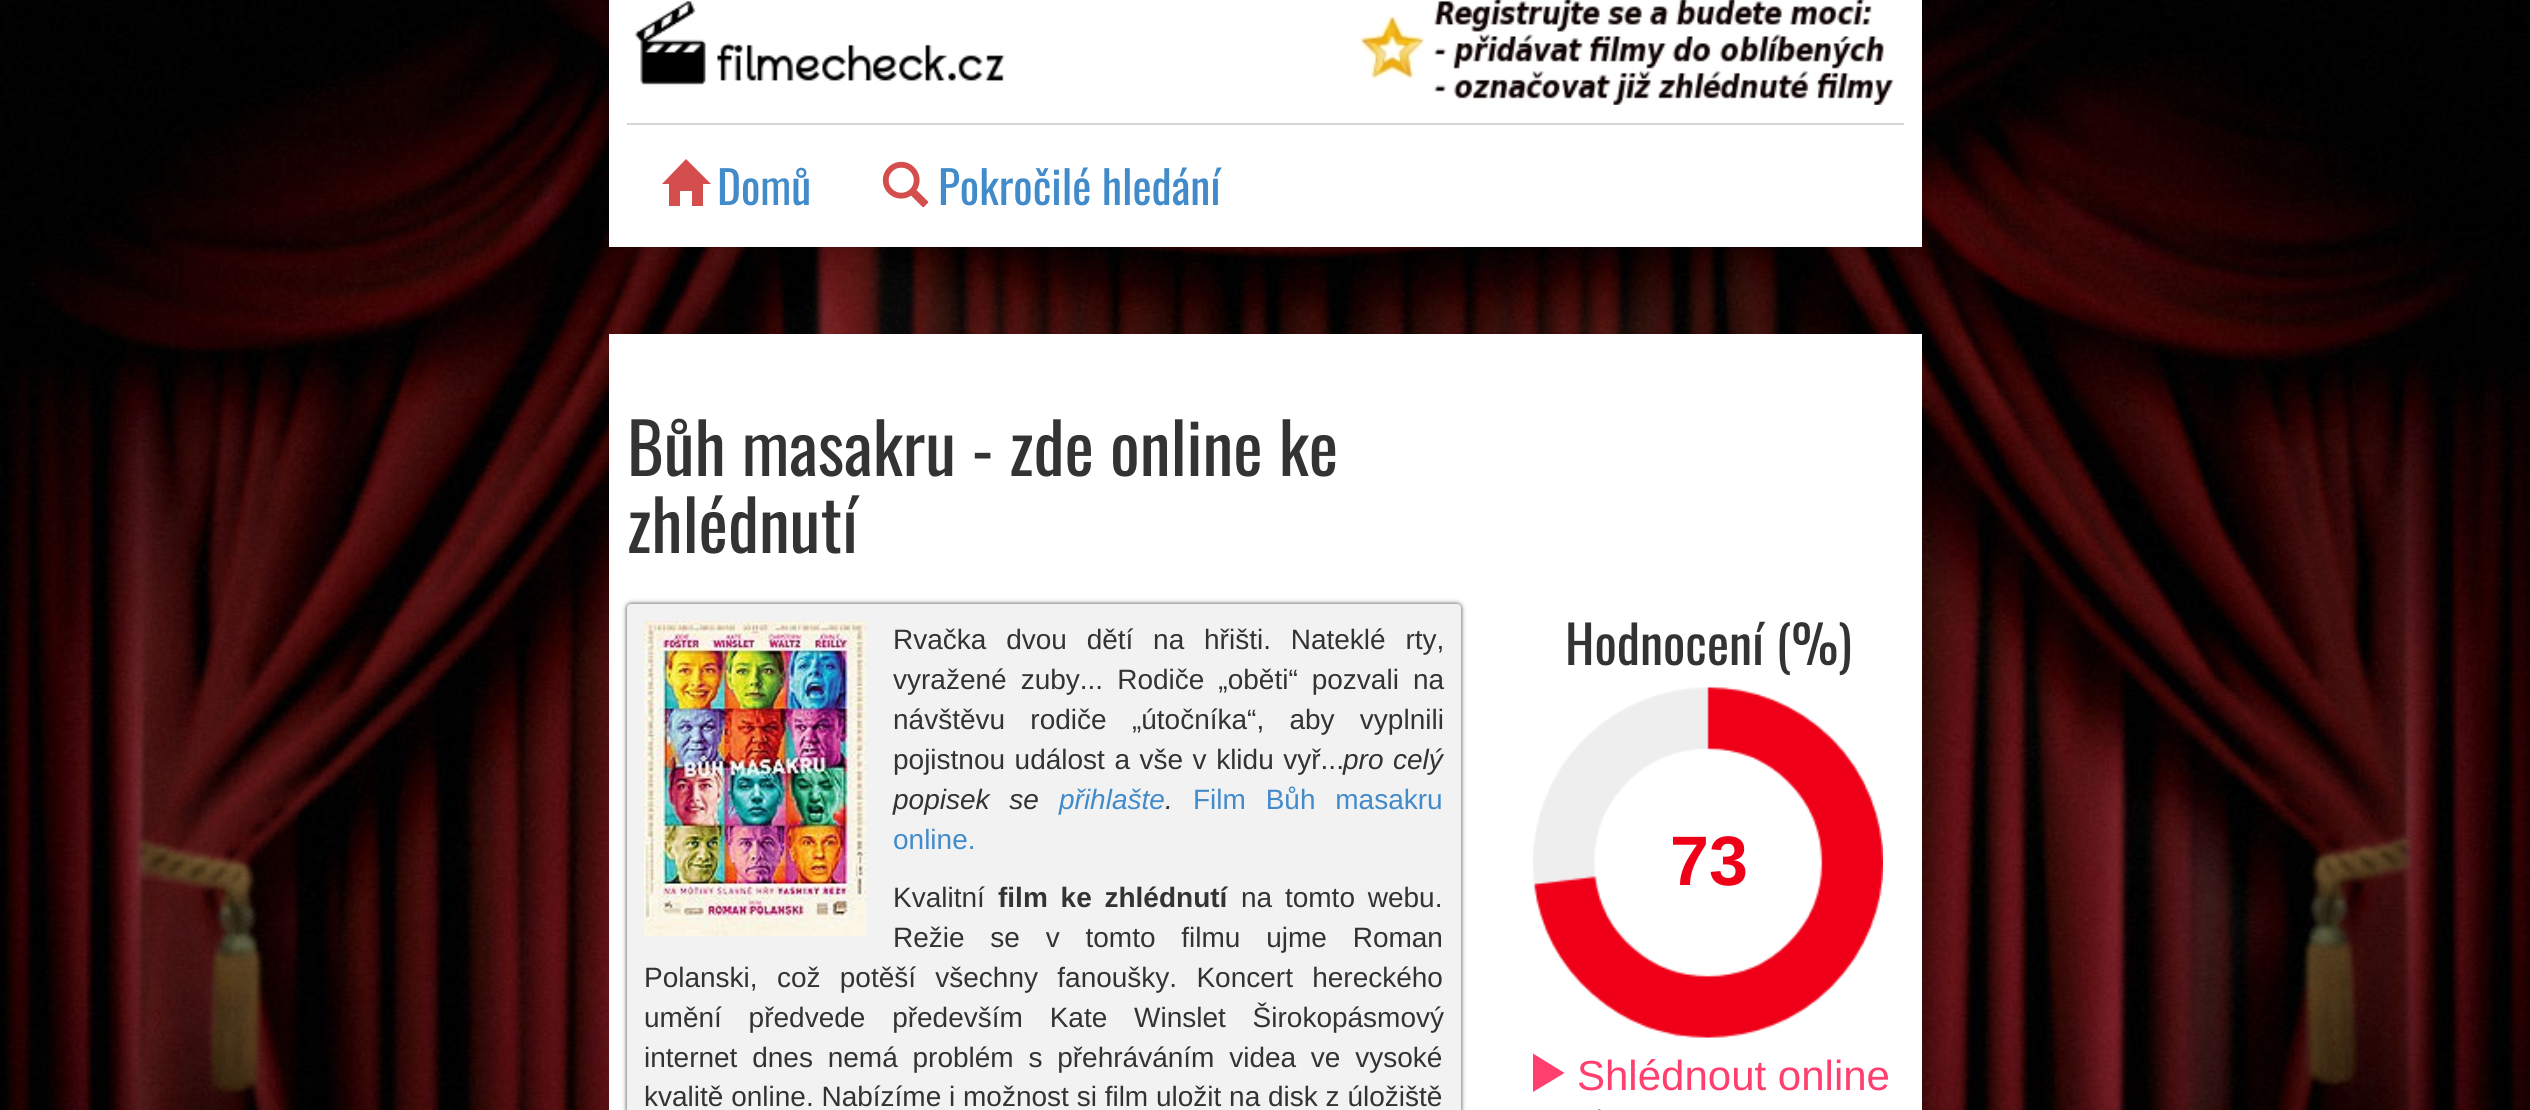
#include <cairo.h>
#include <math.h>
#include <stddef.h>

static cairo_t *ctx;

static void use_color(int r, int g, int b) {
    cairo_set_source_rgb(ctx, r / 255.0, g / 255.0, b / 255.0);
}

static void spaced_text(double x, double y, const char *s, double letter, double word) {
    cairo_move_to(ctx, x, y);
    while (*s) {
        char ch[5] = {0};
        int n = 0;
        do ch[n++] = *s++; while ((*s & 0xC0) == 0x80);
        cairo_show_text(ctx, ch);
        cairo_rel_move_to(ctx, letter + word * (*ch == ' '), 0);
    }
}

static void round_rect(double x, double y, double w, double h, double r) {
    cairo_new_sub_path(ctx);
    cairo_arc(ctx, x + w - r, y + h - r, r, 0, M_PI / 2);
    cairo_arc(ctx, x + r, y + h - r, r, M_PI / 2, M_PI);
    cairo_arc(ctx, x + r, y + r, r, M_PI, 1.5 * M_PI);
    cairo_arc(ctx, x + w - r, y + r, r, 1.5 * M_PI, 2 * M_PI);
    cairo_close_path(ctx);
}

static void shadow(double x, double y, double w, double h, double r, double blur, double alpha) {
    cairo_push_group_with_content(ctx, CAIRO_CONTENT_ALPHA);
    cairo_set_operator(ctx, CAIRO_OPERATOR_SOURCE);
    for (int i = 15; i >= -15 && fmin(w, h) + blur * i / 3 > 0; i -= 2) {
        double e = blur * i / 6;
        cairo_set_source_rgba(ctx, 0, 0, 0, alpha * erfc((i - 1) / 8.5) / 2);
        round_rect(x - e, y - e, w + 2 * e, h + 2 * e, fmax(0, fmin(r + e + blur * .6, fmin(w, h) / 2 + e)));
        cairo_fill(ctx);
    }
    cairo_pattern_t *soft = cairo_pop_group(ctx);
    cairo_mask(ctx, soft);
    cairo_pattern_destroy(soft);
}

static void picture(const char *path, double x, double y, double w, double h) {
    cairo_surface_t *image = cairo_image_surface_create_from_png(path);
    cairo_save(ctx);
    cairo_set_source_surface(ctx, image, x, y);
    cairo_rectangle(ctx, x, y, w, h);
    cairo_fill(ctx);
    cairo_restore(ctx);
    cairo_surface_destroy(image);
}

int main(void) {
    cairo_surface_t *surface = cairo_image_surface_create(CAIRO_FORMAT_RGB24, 2530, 1110);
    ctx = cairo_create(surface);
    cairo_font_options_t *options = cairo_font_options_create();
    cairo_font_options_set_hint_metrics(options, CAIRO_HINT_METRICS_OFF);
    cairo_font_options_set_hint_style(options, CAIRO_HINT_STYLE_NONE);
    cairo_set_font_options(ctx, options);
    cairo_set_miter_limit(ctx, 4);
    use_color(255, 255, 255);
    cairo_paint(ctx);
    picture("img1.png", 0, 0, 2530, 1110);
    use_color(255, 255, 255);
    cairo_rectangle(ctx, 609, 0, 1313, 247);
    cairo_fill(ctx);
    picture("img2.png", 634, 0, 371, 85);
    picture("img3.png", 1359, 0, 535, 105);
    use_color(213, 213, 213);
    cairo_rectangle(ctx, 627, 123, 1277, 2);
    cairo_fill(ctx);
    use_color(212, 78, 78);
    cairo_new_path(ctx);
    cairo_move_to(ctx, 662, 184);
    cairo_line_to(ctx, 686, 159);
    cairo_line_to(ctx, 711, 184);
    cairo_line_to(ctx, 703, 184);
    cairo_line_to(ctx, 703, 206);
    cairo_line_to(ctx, 692, 206);
    cairo_line_to(ctx, 692, 191);
    cairo_line_to(ctx, 680, 191);
    cairo_line_to(ctx, 680, 206);
    cairo_line_to(ctx, 669, 206);
    cairo_line_to(ctx, 669, 184);
    cairo_close_path(ctx);
    cairo_fill(ctx);
    cairo_select_font_face(ctx, "Oswald", CAIRO_FONT_SLANT_NORMAL, CAIRO_FONT_WEIGHT_NORMAL);
    cairo_set_font_size(ctx, 45.5);
    use_color(66, 139, 202);
    cairo_move_to(ctx, 717, 205);
    cairo_show_text(ctx, "Domů");
    picture("img4.png", 882, 161, 47, 47);
    cairo_move_to(ctx, 938, 205);
    cairo_show_text(ctx, "Pokročilé hledání");
    use_color(255, 255, 255);
    cairo_rectangle(ctx, 609, 334, 1313, 776);
    cairo_fill(ctx);
    cairo_set_font_size(ctx, 70);
    use_color(51, 51, 51);
    cairo_move_to(ctx, 627, 476);
    cairo_show_text(ctx, "Bůh masakru - zde online ke");
    cairo_move_to(ctx, 627, 553);
    cairo_show_text(ctx, "zhlédnutí");
    use_color(0, 0, 0);
    shadow(627, 604, 834, 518, 4, 2.5, 0.76);
    use_color(242, 242, 242);
    round_rect(627, 604, 834, 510, 4);
    cairo_fill(ctx);
    picture("img5.png", 644, 621, 223, 315);
    cairo_select_font_face(ctx, "Liberation Sans", CAIRO_FONT_SLANT_NORMAL, CAIRO_FONT_WEIGHT_NORMAL);
    cairo_set_font_size(ctx, 28);
    use_color(51, 51, 51);
    spaced_text(893, 649, "Rvačka dvou dětí na hřišti. Nateklé rty,", 0, 12);
    spaced_text(893, 689, "vyražené zuby... Rodiče „oběti“ pozvali na", 0, 6.25);
    spaced_text(893, 729, "návštěvu rodiče „útočníka“, aby vyplnili", 0, 17.5);
    spaced_text(893, 769, "pojistnou událost a vše v klidu vyř...", 0, 1.75);
    cairo_select_font_face(ctx, "Liberation Sans", CAIRO_FONT_SLANT_ITALIC, CAIRO_FONT_WEIGHT_NORMAL);
    spaced_text(1343, 769, "pro celý", 0, 1.75);
    spaced_text(893, 809, "popisek se", 0, 12);
    use_color(66, 139, 202);
    cairo_move_to(ctx, 1059, 809);
    cairo_show_text(ctx, "přihlašte");
    use_color(51, 51, 51);
    cairo_move_to(ctx, 1165, 809);
    cairo_show_text(ctx, ".");
    cairo_select_font_face(ctx, "Liberation Sans", CAIRO_FONT_SLANT_NORMAL, CAIRO_FONT_WEIGHT_NORMAL);
    use_color(66, 139, 202);
    spaced_text(1193, 809, "Film Bůh masakru", 0, 12);
    cairo_move_to(ctx, 893, 849);
    cairo_show_text(ctx, "online.");
    use_color(51, 51, 51);
    cairo_move_to(ctx, 893, 907);
    cairo_show_text(ctx, "Kvalitní");
    cairo_select_font_face(ctx, "Liberation Sans", CAIRO_FONT_SLANT_NORMAL, CAIRO_FONT_WEIGHT_BOLD);
    spaced_text(998, 907, "film ke zhlédnutí", 0, 5);
    cairo_select_font_face(ctx, "Liberation Sans", CAIRO_FONT_SLANT_NORMAL, CAIRO_FONT_WEIGHT_NORMAL);
    spaced_text(1241, 907, "na tomto webu.", 0, 5);
    spaced_text(893, 947, "Režie se v tomto filmu ujme Roman", 0, 18);
    spaced_text(644, 987, "Polanski, což potěší všechny fanoušky. Koncert hereckého", 0, 11.5);
    spaced_text(644, 1027, "umění předvede především Kate Winslet Širokopásmový", 0, 19);
    spaced_text(644, 1067, "internet dnes nemá problém s přehráváním videa ve vysoké", 0, 7);
    cairo_move_to(ctx, 644, 1106);
    cairo_show_text(ctx, "kvalitě online. Nabízíme i možnost si film uložit na disk z úložiště");
    cairo_select_font_face(ctx, "Oswald", CAIRO_FONT_SLANT_NORMAL, CAIRO_FONT_WEIGHT_NORMAL);
    cairo_set_font_size(ctx, 52.5);
    cairo_move_to(ctx, 1565, 665);
    cairo_show_text(ctx, "Hodnocení (%)");
    picture("img6.png", 1533, 687, 350, 351);
    cairo_select_font_face(ctx, "Liberation Sans", CAIRO_FONT_SLANT_NORMAL, CAIRO_FONT_WEIGHT_BOLD);
    cairo_set_font_size(ctx, 70);
    use_color(240, 0, 24);
    cairo_move_to(ctx, 1670, 885);
    cairo_show_text(ctx, "73");
    use_color(255, 64, 111);
    cairo_new_path(ctx);
    cairo_move_to(ctx, 1533, 1092);
    cairo_line_to(ctx, 1564.5, 1073);
    cairo_line_to(ctx, 1533, 1053.5);
    cairo_close_path(ctx);
    cairo_fill(ctx);
    cairo_select_font_face(ctx, "Liberation Sans", CAIRO_FONT_SLANT_NORMAL, CAIRO_FONT_WEIGHT_NORMAL);
    cairo_set_font_size(ctx, 42);
    cairo_move_to(ctx, 1577, 1090);
    cairo_show_text(ctx, "Shlédnout online");
    picture("img7.png", 1598, 1109, 3, 1);
    cairo_surface_write_to_png(surface, "result.png");
    cairo_font_options_destroy(options);
    cairo_destroy(ctx);
    cairo_surface_destroy(surface);
    return 0;
}
